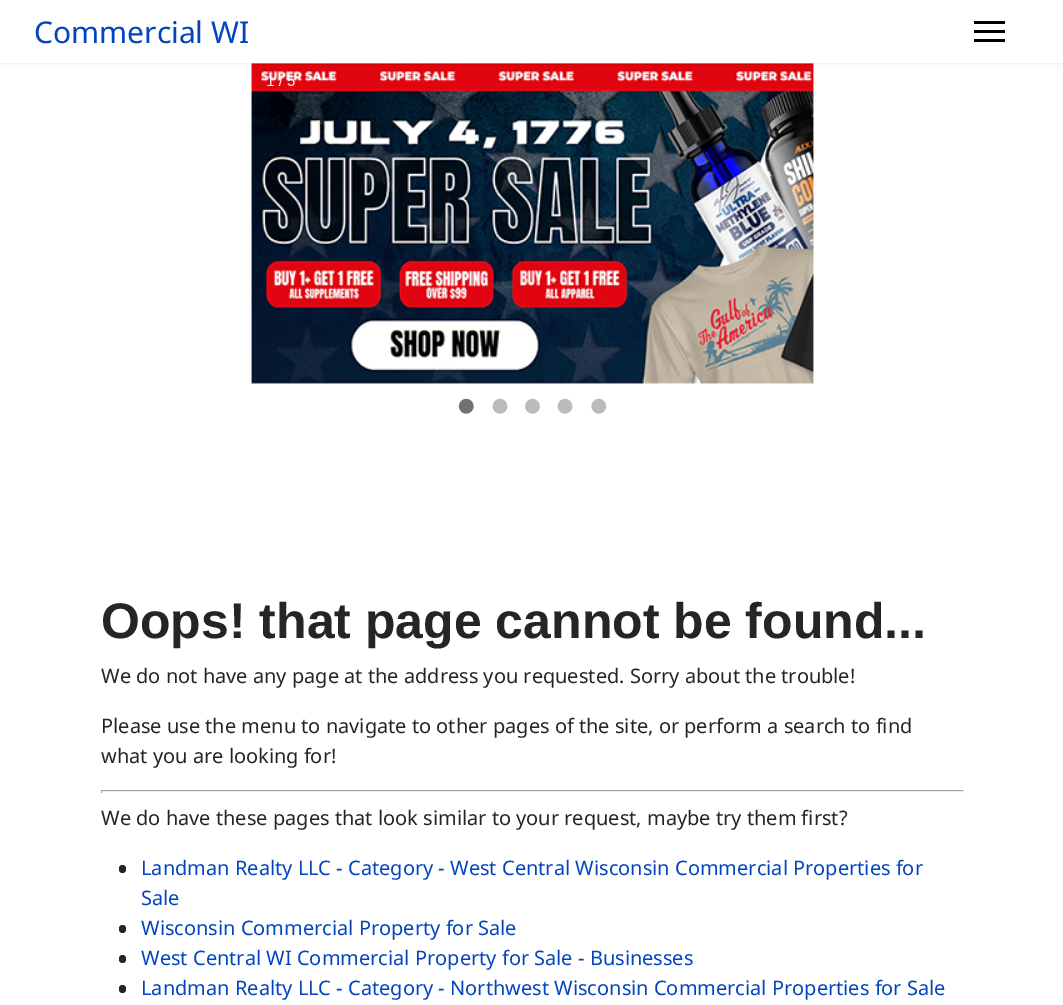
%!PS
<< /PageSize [1063 1005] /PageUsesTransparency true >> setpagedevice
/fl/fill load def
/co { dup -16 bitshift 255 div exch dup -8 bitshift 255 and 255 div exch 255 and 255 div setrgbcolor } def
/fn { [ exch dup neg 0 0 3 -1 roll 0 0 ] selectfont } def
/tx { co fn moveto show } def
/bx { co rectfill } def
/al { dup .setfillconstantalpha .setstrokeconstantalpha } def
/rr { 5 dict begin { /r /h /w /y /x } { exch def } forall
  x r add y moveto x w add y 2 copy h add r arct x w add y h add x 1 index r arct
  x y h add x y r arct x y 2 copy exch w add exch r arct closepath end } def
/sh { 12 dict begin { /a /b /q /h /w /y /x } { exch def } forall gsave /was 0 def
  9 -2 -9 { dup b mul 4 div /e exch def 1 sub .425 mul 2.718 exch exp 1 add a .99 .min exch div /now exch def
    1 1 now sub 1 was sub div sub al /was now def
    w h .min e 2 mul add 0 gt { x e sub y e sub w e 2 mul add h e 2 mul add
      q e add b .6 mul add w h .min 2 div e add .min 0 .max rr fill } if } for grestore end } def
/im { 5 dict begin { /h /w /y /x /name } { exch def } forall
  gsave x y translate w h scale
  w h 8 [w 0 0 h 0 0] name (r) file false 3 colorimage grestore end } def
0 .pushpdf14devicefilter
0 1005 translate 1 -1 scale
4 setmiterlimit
0 0 1063 1005 16#FFFFFF bx
(media/1.raw) 251 63 563 351 im
16#000000 co
0 0 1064 63 0 2.5 .1 sh
0 0 1063 63 16#FFFFFF bx
974 21 31 3 16#000000 bx
974 30 31 3 16#000000 bx
974 39 31 3 16#000000 bx
101 790 863 1 16#9F9F9F bx
963 790 1 3 16#EEEEEE bx
101 791 863 1 16#EEEEEE bx
101 790 1 3 16#9F9F9F bx
16#252525 co
119 865 7 8 3.5 rr fl
119 925 7 8 3.5 rr fl
119 955 7 8 3.5 rr fl
119 985 7 8 3.5 rr fl
(Commercial WI) 34 43 /NotoSans-Regular 30 16#0345BF tx
(Oops! that page cannot be found...) 101 638 /LiberationSans-Bold 50 16#252525 tx
(We do not have any page at the address you requested. Sorry about the trouble!) 101 683 /NotoSans-Regular 20 16#252525 tx
(Please use the menu to navigate to other pages of the site, or perform a search to find) 101 733 /NotoSans-Regular 20 16#252525 tx
(what you are looking for!) 101 763 /NotoSans-Regular 20 16#252525 tx
(We do have these pages that look similar to your request, maybe try them first?) 101 825 /NotoSans-Regular 20 16#252525 tx
(Landman Realty LLC - Category - West Central Wisconsin Commercial Properties for) 141 875 /NotoSans-Regular 20 16#0345BF tx
(Sale) 141 905 /NotoSans-Regular 20 16#0345BF tx
(Wisconsin Commercial Property for Sale) 141 935 /NotoSans-Regular 20 16#0345BF tx
(West Central WI Commercial Property for Sale - Businesses) 141 965 /NotoSans-Regular 20 16#0345BF tx
(Landman Realty LLC - Category - Northwest Wisconsin Commercial Properties for Sale) 141 995 /NotoSans-Regular 20 16#0345BF tx
.poppdf14devicefilter showpage
